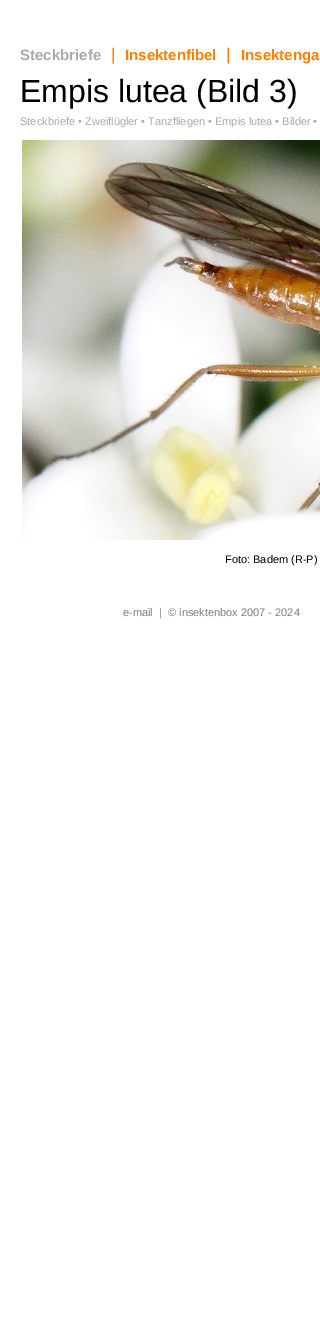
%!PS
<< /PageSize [320 1317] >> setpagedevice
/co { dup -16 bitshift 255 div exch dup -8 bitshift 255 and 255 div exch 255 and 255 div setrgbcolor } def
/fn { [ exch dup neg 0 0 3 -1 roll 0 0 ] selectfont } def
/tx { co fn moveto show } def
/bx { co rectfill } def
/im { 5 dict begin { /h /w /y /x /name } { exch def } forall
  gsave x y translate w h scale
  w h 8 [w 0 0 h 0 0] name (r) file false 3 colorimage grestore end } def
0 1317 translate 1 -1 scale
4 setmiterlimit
0 0 320 1317 16#FFFFFF bx
(media/1.raw) 22 140 298 400 im
(Steckbriefe) 20 60 /LiberationSans-Bold 15 16#AAAAAA tx
(|) 111 60 /LiberationSans-Regular 17 16#FF7F00 tx
(Insektenfibel) 125 60 /LiberationSans-Bold 15 16#FF7F00 tx
(|) 226 60 /LiberationSans-Regular 17 16#FF7F00 tx
(Insektenga) 241 60 /LiberationSans-Bold 15 16#FF7F00 tx
(Empis lutea \(Bild 3\)) 20 102 /LiberationSans-Regular 32 16#000000 tx
(Steckbriefe • Zweiflügler • Tanzfliegen • Empis lutea • Bilder •) 20 125 /LiberationSans-Regular 11 16#AAAAAA tx
(Foto: Badem \(R-P\)) 225 563 /LiberationSans-Regular 11 16#000000 tx
(e-mail) 123 616 /LiberationSans-Regular 11 16#7F7F7F tx
(|) 159 616 /LiberationSans-Regular 11 16#7F7F7F tx
(© insektenbox 2007 - 2024) 168 616 /LiberationSans-Regular 11 16#7F7F7F tx
showpage
